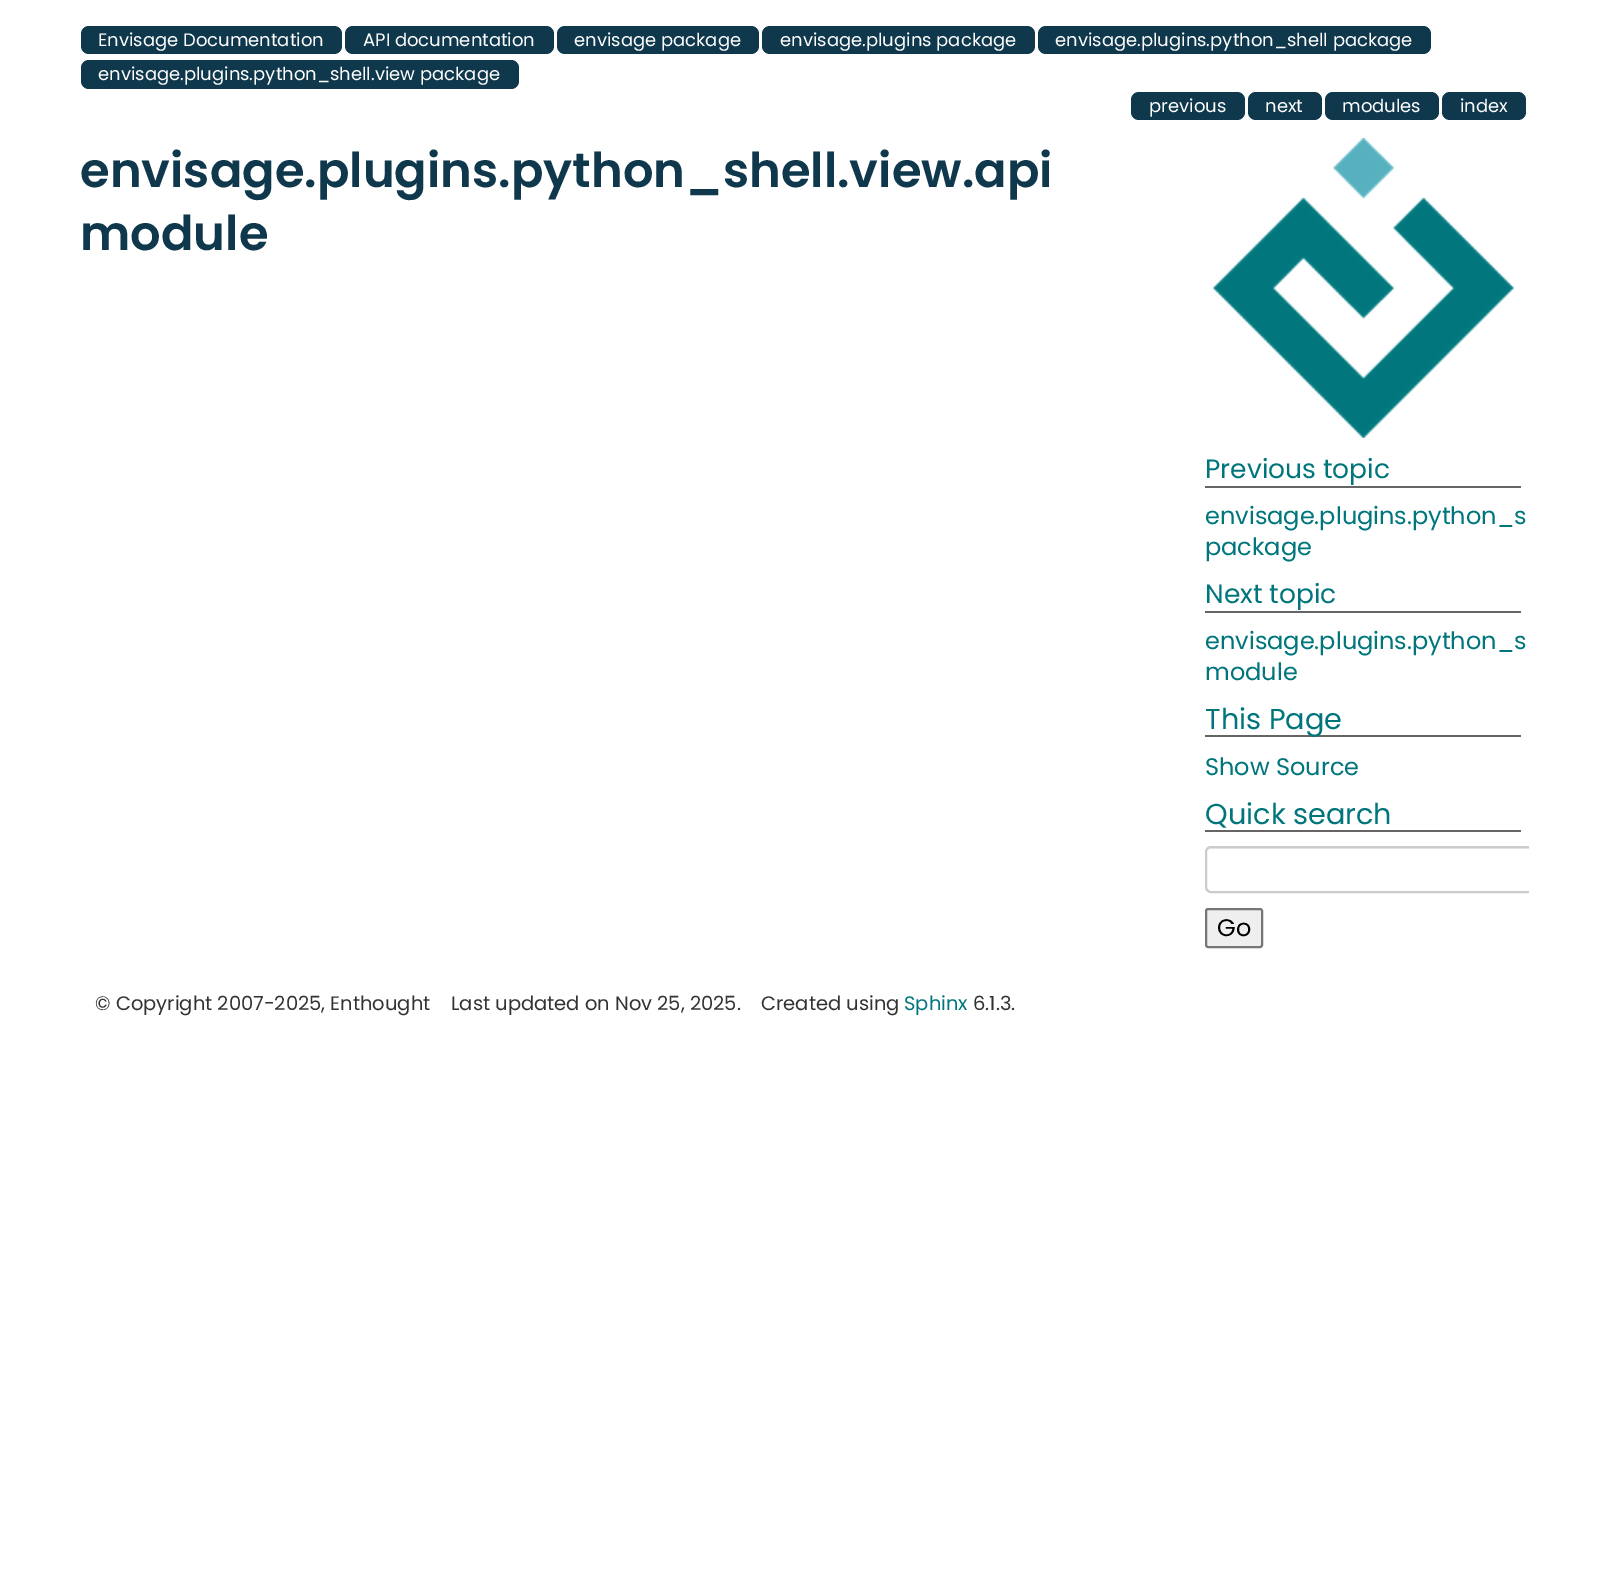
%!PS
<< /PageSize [1609 1578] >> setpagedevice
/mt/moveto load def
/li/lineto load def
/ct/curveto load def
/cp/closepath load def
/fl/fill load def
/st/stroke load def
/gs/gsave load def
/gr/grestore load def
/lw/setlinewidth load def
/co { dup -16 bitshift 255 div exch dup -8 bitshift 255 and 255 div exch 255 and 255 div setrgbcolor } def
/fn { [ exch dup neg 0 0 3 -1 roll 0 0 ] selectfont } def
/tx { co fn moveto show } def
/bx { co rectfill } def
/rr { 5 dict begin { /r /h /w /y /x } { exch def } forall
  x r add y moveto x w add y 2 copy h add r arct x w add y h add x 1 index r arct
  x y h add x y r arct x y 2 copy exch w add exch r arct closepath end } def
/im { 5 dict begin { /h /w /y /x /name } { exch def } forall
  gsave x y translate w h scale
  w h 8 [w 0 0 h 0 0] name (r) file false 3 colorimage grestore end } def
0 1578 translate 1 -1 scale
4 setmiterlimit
0 0 1609 1578 16#FFFFFF bx
16#0F384D co
81 26 261 28 8 rr fl
345 26 209 28 8 rr fl
557 26 202 28 8 rr fl
762 26 273 28 8 rr fl
1038 26 393 28 8 rr fl
81 60 438 29 8 rr fl
1131 92 114 28 8 rr fl
1248 92 74 28 8 rr fl
1325 92 114 28 8 rr fl
1442 92 84 28 8 rr fl
(media/1.raw) 1213 138 301 300 im
1205 486 316 2 16#656565 bx
1205 611 316 2 16#656565 bx
1205 735 316 2 16#656565 bx
1205 830 316 2 16#656565 bx
gs
1190 123 339 857 rectclip
16#ECECEC co
1210 849 mt 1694 849 li 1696 849 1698 851 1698 854 ct 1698 853 li 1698 850 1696 848 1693 848 ct 1211 848 li 1208 848 1206 850 1206 853 ct 1206 854 li 1206 851 1208 849 1210 849 ct cp fl
16#CCCCCC co
2 lw
1206 847 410 45 5 rr st
gr
16#EFEFEF co
1206 909 56 38 2 rr gs fl gr
16#767676 co
2 lw
st
(Envisage Documentation) 98 46 /Poppins-Regular 18 16#FFFFFF tx
(API documentation) 363 46 /Poppins-Regular 18 16#FFFFFF tx
(envisage package) 574 46 /Poppins-Regular 18 16#FFFFFF tx
(envisage.plugins package) 780 46 /Poppins-Regular 18 16#FFFFFF tx
(envisage.plugins.python_shell package) 1055 46 /Poppins-Regular 18 16#FFFFFF tx
(envisage.plugins.python_shell.view package) 98 80 /Poppins-Regular 18 16#FFFFFF tx
(previous) 1149 112 /Poppins-Regular 18 16#FFFFFF tx
(next) 1265 112 /Poppins-Regular 18 16#FFFFFF tx
(modules) 1342 112 /Poppins-Regular 18 16#FFFFFF tx
(index) 1460 112 /Poppins-Regular 18 16#FFFFFF tx
(envisage.plugins.python_shell.view.api) 80 187 /Poppins-SemiBold 48 16#0F384D tx
(module) 80 250 /Poppins-SemiBold 48 16#0F384D tx
(Previous topic) 1205 478 /Poppins-Regular 26.5 16#00767C tx
(envisage.plugins.python_s) 1205 524 /Poppins-Regular 24 16#00767C tx
(package) 1205 555 /Poppins-Regular 24 16#00767C tx
(Next topic) 1205 603 /Poppins-Regular 26.5 16#00767C tx
(envisage.plugins.python_s) 1205 649 /Poppins-Regular 24 16#00767C tx
(module) 1205 680 /Poppins-Regular 24 16#00767C tx
(This Page) 1205 729 /Poppins-Regular 28.75 16#00767C tx
(Show Source) 1205 775 /Poppins-Regular 24 16#00767C tx
(Quick search) 1205 824 /Poppins-Regular 28.75 16#00767C tx
(Go) 1217 936 /Poppins-Regular 24 16#000000 tx
(© Copyright 2007-2025, Enthought) 95 1010 /Poppins-Regular 19.5 16#333333 tx
(Last updated on Nov 25, 2025.) 451 1010 /Poppins-Regular 19.5 16#333333 tx
(Created using) 761 1010 /Poppins-Regular 19.5 16#333333 tx
(Sphinx) 904 1010 /Poppins-Regular 19.5 16#00767C tx
(6.1.3.) 973 1010 /Poppins-Regular 19.5 16#333333 tx
showpage
